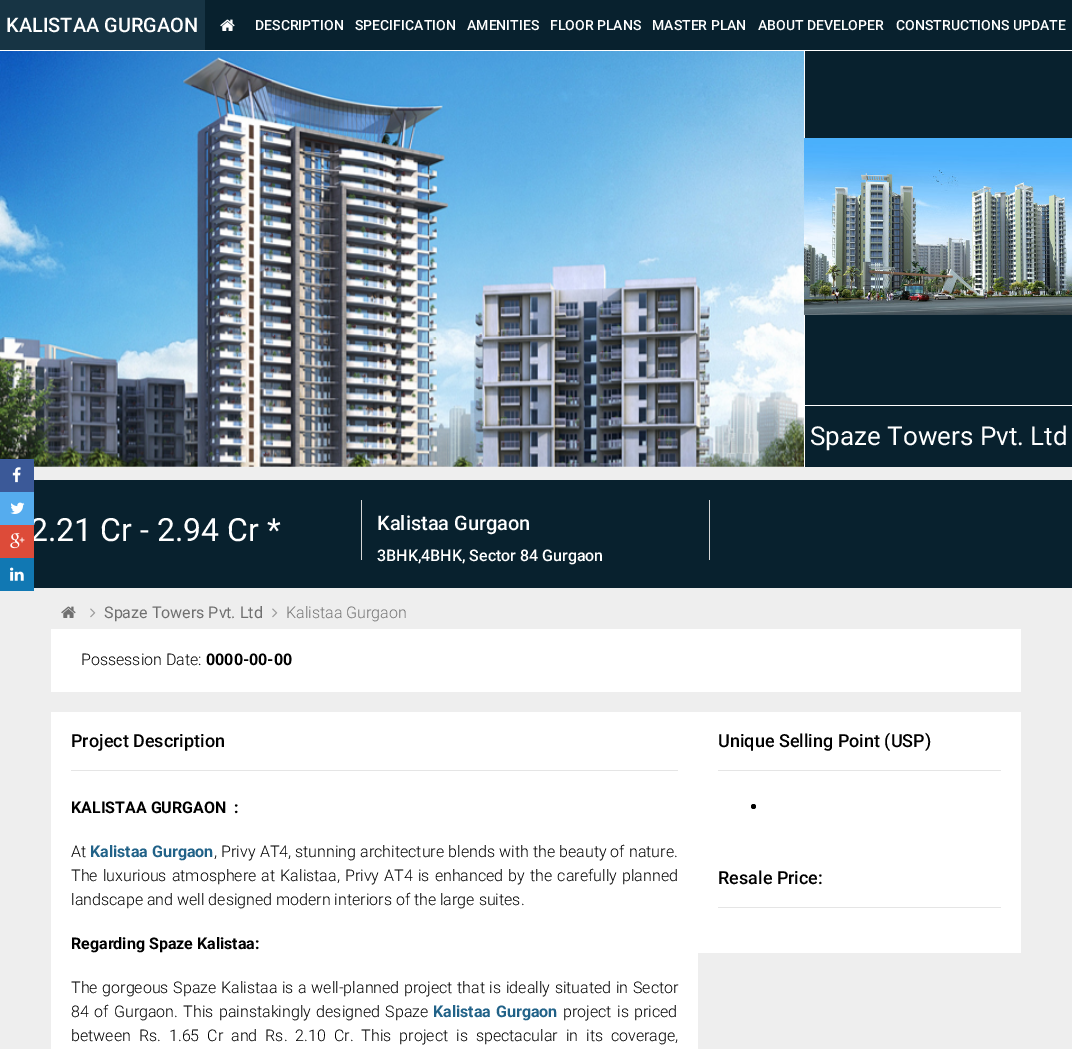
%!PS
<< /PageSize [1072 1049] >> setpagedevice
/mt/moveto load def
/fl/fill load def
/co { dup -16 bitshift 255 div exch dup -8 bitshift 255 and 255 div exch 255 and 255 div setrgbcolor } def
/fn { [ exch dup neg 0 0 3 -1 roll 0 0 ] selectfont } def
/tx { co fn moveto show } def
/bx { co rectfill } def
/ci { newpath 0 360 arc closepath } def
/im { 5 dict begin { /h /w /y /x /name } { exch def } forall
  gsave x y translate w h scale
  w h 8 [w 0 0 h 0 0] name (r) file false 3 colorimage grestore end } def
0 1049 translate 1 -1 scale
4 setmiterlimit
0 0 1072 1049 16#EEEEEE bx
0 50 1072 1 16#FFFFFF bx
0 0 205 50 16#173444 bx
205 0 867 50 16#08212E bx
(media/1.raw) 220 19 15 12 im
(media/2.raw) 0 51 804 416 im
805 51 267 354 16#08212E bx
804 51 1 354 16#FFFFFF bx
(media/3.raw) 804 138 268 177 im
805 406 267 61 16#08212E bx
804 405 268 1 16#FFFFFF bx
804 405 1 62 16#FFFFFF bx
(media/4.raw) 61 606 15 12 im
(media/5.raw) 90 608 6 10 im
(media/5.raw) 272 608 6 10 im
51 629 970 63 16#FFFFFF bx
51 712 647 337 16#FFFFFF bx
71 770 607 1 16#E5E5E5 bx
698 712 323 241 16#FFFFFF bx
718 770 283 1 16#E5E5E5 bx
16#000000 co
753.5 806.5 2.5 ci fl
718 907 283 1 16#E5E5E5 bx
0 459 34 33 16#3B5998 bx
(media/6.raw) 12 467 9 16 im
0 558 34 33 16#1178B3 bx
(media/9.raw) 10 567 14 14 im
34 480 1038 108 16#08212E bx
361 500 1 60 16#D7D7D7 bx
709 500 1 60 16#D7D7D7 bx
(KALISTAA GURGAON) 6 32 /Roboto-Medium 20 16#FFFFFF tx
(DESCRIPTION) 255 30 /Roboto-Medium 14 16#FFFFFF tx
(SPECIFICATION) 355 30 /Roboto-Medium 14 16#FFFFFF tx
(AMENITIES) 467 30 /Roboto-Medium 14 16#FFFFFF tx
(FLOOR PLANS) 550 30 /Roboto-Medium 14 16#FFFFFF tx
(MASTER PLAN) 652 30 /Roboto-Medium 14 16#FFFFFF tx
(ABOUT DEVELOPER) 758 30 /Roboto-Medium 14 16#FFFFFF tx
(CONSTRUCTIONS UPDATE) 896 30 /Roboto-Medium 14 16#FFFFFF tx
(Spaze Towers Pvt. Ltd) 810 445 /Roboto-Regular 26 16#FFFFFF tx
(Spaze Towers Pvt. Ltd) 104 618 /Roboto-Regular 16 16#707070 tx
(Kalistaa Gurgaon) 286 618 /Roboto-Light 16 16#777777 tx
(Possession Date:) 81 665 /Roboto-Light 16 16#000000 tx
(0000-00-00) 206 665 /Roboto-Bold 16 16#000000 tx
(Project Description) 71 747 /Roboto-Medium 18 16#000000 tx
(KALISTAA GURGAON  :) 71 813 /Roboto-Bold 16 16#000000 tx
(At) 71 857 /Roboto-Light 16 16#000000 tx
(Kalistaa Gurgaon) 90 857 /Roboto-Bold 16 16#216288 tx
/Roboto-Light 16 fn
16#000000 co
214 857 mt .25 0 32 (, Privy AT4, stunning architecture blends with the beauty of nature.) widthshow
71 881 mt 1.25 0 32 (The luxurious atmosphere at Kalistaa, Privy AT4 is enhanced by the carefully planned) widthshow
(landscape and well designed modern interiors of the large suites.) 71 905 /Roboto-Light 16 16#000000 tx
(Regarding Spaze Kalistaa:) 71 949 /Roboto-Bold 16 16#000000 tx
/Roboto-Light 16 fn
71 993 mt .75 0 32 (The gorgeous Spaze Kalistaa is a well-planned project that is ideally situated in Sector) widthshow
71 1017 mt 1.5 0 32 (84 of Gurgaon. This painstakingly designed Spaze) widthshow
/Roboto-Bold 16 fn
16#216288 co
433 1017 mt 1 0 32 (Kalistaa Gurgaon) widthshow
/Roboto-Light 16 fn
16#000000 co
563 1017 mt 1.5 0 32 (project is priced) widthshow
71 1041 mt 4.1 0 32 (between Rs. 1.65 Cr and Rs. 2.10 Cr. This project is spectacular in its coverage,) widthshow
(Unique Selling Point \(USP\)) 718 747 /Roboto-Medium 18 16#000000 tx
(Resale Price:) 718 884 /Roboto-Medium 18 16#000000 tx
(2.21 Cr - 2.94 Cr *) 30 541 /Roboto-Regular 32 16#FFFFFF tx
0 525 34 33 16#DD4B39 bx
(media/8.raw) 10 533 15 16 im
0 492 34 33 16#55ACEE bx
(media/7.raw) 10 502 15 12 im
(Kalistaa Gurgaon) 377 530 /Roboto-Medium 20 16#FFFFFF tx
(3BHK,4BHK, Sector 84 Gurgaon) 377 561 /Roboto-Medium 16 16#FFFFFF tx
showpage
